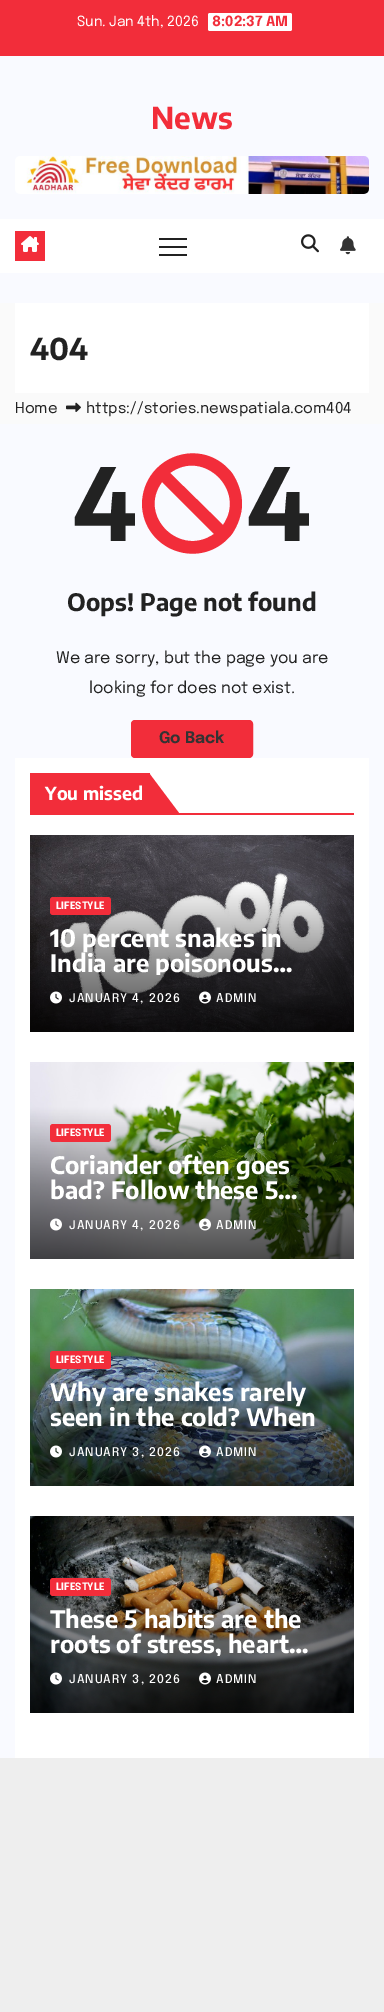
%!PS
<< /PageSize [384 2012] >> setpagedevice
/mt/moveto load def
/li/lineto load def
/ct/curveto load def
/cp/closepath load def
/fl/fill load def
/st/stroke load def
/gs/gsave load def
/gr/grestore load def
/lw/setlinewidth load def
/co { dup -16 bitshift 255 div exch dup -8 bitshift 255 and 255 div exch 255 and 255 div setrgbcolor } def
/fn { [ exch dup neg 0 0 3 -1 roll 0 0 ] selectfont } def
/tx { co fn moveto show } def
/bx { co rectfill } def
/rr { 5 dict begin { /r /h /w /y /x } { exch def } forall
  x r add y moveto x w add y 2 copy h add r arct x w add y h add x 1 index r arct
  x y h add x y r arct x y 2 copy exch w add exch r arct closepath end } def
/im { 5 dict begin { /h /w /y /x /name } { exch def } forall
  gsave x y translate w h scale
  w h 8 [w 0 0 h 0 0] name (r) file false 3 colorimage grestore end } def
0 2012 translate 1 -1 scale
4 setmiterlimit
0 0 384 2012 16#EEEEEE bx
0 273 384 1485 16#F9FAFF bx
0 0 384 56 16#F22D3A bx
16#FFFFFF co
208 13 84 18 2 rr fl
0 56 384 163 16#F9FAFF bx
(media/1.raw) 15 156 354 38 im
0 219 384 54 16#FFFFFF bx
15 231 30 30 16#F22D3A bx
(media/2.raw) 21 236 18 16 im
159 238 28 2 16#212121 bx
159 246 28 2 16#212121 bx
159 254 28 2 16#212121 bx
(media/3.raw) 301 234 18 19 im
(media/4.raw) 340 236 16 19 im
0 303 384 121 16#FAFAFA bx
15 303 354 90 16#FFFFFF bx
(media/5.raw) 66 402 15 10 im
16#F22D3A co
214 534 mt 162 482 li 137 516 180 558 214 534 ct cp 223 525 mt 247 491 204 448 170 473 ct cp 142 504 mt 143 456 202 435 232 473 ct 238 482 242 493 242 504 ct 242 514 238 525 232 534 ct 202 572 143 551 142 504 ct cp fl
132 721 120 36 3 rr gs fl gr
2 lw
st
15 758 354 1000 16#FFFFFF bx
30 813 324 2 16#F22D3A bx
30 773 120 40 16#F22D3A bx
149 813 mt 149 773 li 179 813 li cp fl
(media/6.raw) 30 835 324 197 im
50 897 61 18 3 rr fl
(media/7.raw) 50 991 12 13 im
(media/8.raw) 199 991 12 13 im
(media/9.raw) 30 1062 324 197 im
50 1124 61 18 3 rr fl
(media/10.raw) 50 1218 12 13 im
(media/11.raw) 199 1218 12 13 im
(media/12.raw) 30 1289 324 197 im
50 1351 61 18 3 rr fl
(media/13.raw) 50 1445 12 13 im
(media/14.raw) 199 1445 12 13 im
(media/15.raw) 30 1516 324 197 im
50 1578 61 18 3 rr fl
(media/16.raw) 50 1672 12 13 im
(media/17.raw) 199 1672 12 13 im
(Sun. Jan 4th, 2026) 77 26 /Epilogue-Regular 14 16#FFFFFF tx
(8:02:37 AM) 212 26 /Epilogue-Bold 14 16#F22D3A tx
(News) 151 129 /EncodeSansCondensed-Bold 30 16#F22D3A tx
(404) 30 360 /EncodeSansCondensed-Bold 30 16#222222 tx
(Home) 15 413 /Epilogue-Regular 15 16#222222 tx
(https://stories.newspatiala.com404) 86 413 /Epilogue-Regular 15 16#222222 tx
(4) 73 541 /EncodeSansCondensed-Bold 100 16#222222 tx
(4) 247 541 /EncodeSansCondensed-Bold 100 16#222222 tx
(Oops! Page not found) 67 611 /EncodeSansCondensed-Bold 24 16#222222 tx
(We are sorry, but the page you are) 56 663 /Epilogue-Regular 16 16#222222 tx
(looking for does not exist.) 89 693 /Epilogue-Regular 16 16#222222 tx
(Go Back) 159 743 /Epilogue-Bold 16 16#333333 tx
(You missed) 45 800 /EncodeSansCondensed-Bold 18 16#FFFFFF tx
(LIFESTYLE) 56 909 /Epilogue-Bold 10 16#FFFFFF tx
(10 percent snakes in) 50 947 /EncodeSansCondensed-Bold 24 16#FFFFFF tx
gs
50 925 284 50 rectclip
(India are poisonous…) 50 972 /EncodeSansCondensed-Bold 24 16#FFFFFF tx
gr
/Epilogue-Medium 12 fn
69 1002 mt 1 0 (JANUARY 4, 2026) ashow
216 1002 mt 1 0 (ADMIN) ashow
(LIFESTYLE) 56 1136 /Epilogue-Bold 10 16#FFFFFF tx
(Coriander often goes) 50 1174 /EncodeSansCondensed-Bold 24 16#FFFFFF tx
(bad? Follow these 5…) 50 1199 /EncodeSansCondensed-Bold 24 16#FFFFFF tx
/Epilogue-Medium 12 fn
69 1229 mt 1 0 (JANUARY 4, 2026) ashow
216 1229 mt 1 0 (ADMIN) ashow
(LIFESTYLE) 56 1363 /Epilogue-Bold 10 16#FFFFFF tx
(Why are snakes rarely) 50 1401 /EncodeSansCondensed-Bold 24 16#FFFFFF tx
(seen in the cold? When) 50 1426 /EncodeSansCondensed-Bold 24 16#FFFFFF tx
/Epilogue-Medium 12 fn
69 1456 mt 1 0 (JANUARY 3, 2026) ashow
216 1456 mt 1 0 (ADMIN) ashow
(LIFESTYLE) 56 1590 /Epilogue-Bold 10 16#FFFFFF tx
(These 5 habits are the) 50 1628 /EncodeSansCondensed-Bold 24 16#FFFFFF tx
gs
50 1606 284 50 rectclip
(roots of stress, heart…) 50 1653 /EncodeSansCondensed-Bold 24 16#FFFFFF tx
gr
/Epilogue-Medium 12 fn
69 1683 mt 1 0 (JANUARY 3, 2026) ashow
216 1683 mt 1 0 (ADMIN) ashow
showpage
